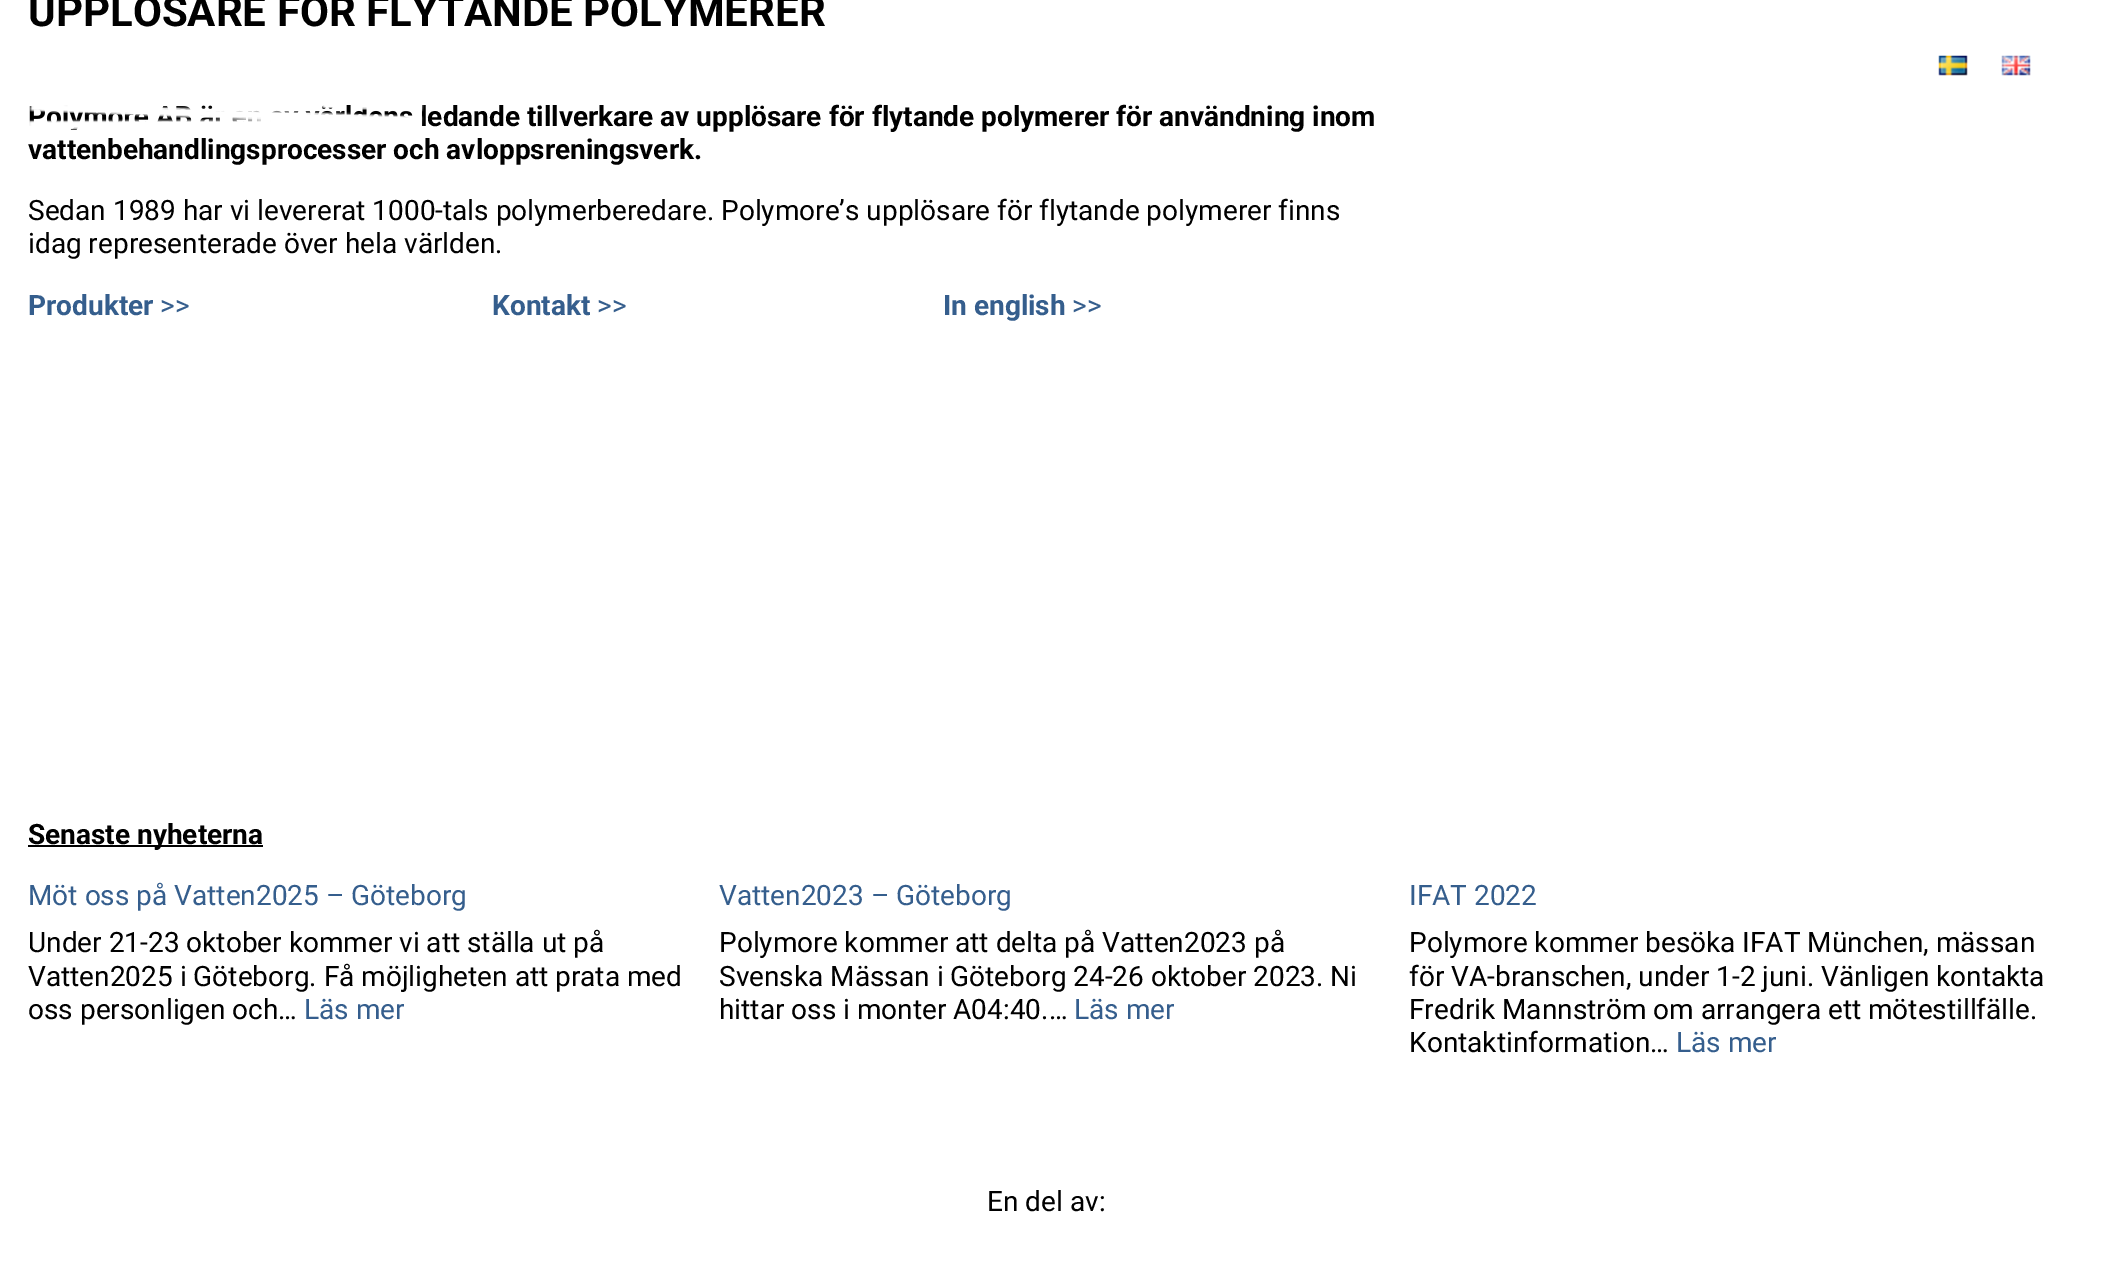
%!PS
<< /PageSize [2118 1287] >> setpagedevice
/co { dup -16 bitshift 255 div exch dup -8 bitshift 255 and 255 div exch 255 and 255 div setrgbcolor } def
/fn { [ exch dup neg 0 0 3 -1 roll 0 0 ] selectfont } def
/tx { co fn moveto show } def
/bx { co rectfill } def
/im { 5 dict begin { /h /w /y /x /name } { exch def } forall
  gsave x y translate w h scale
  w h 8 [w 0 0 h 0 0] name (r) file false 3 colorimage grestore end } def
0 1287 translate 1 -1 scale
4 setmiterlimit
0 0 2118 1287 16#FFFFFF bx
28 845 235 2 16#000000 bx
(media/1.raw) 1938 55 30 21 im
(media/2.raw) 2001 55 30 21 im
(UPPLÖSARE FÖR FLYTANDE POLYMERER) 28 26 /Roboto-Bold 42 16#000000 tx
(ledande tillverkare av upplösare för flytande polymerer för användning inom) 420 126 /Roboto-Bold 28 16#000000 tx
(vattenbehandlingsprocesser och avloppsreningsverk.) 28 159 /Roboto-Bold 28 16#000000 tx
(Sedan 1989 har vi levererat 1000-tals polymerberedare. Polymore’s upplösare för flytande polymerer finns) 28 220 /Roboto-Regular 28 16#000000 tx
(idag representerade över hela världen.) 28 253 /Roboto-Regular 28 16#000000 tx
(Produkter) 28 315 /Roboto-Bold 28 16#355E8D tx
(>>) 160 315 /Roboto-Regular 28 16#355E8D tx
(Kontakt) 492 315 /Roboto-Bold 28 16#355E8D tx
(>>) 597 315 /Roboto-Regular 28 16#355E8D tx
(In english) 943 315 /Roboto-Bold 28 16#355E8D tx
(>>) 1072 315 /Roboto-Regular 28 16#355E8D tx
(Senaste nyheterna) 28 844 /Roboto-Bold 28 16#000000 tx
(Möt oss på Vatten2025 – Göteborg) 28 905 /Roboto-Regular 28 16#355E8D tx
(Under 21-23 oktober kommer vi att ställa ut på) 28 952 /Roboto-Regular 28 16#000000 tx
(Vatten2025 i Göteborg. Få möjligheten att prata med) 28 986 /Roboto-Regular 28 16#000000 tx
(oss personligen och…) 28 1019 /Roboto-Regular 28 16#000000 tx
(Läs mer) 304 1019 /Roboto-Regular 28 16#355E8D tx
(Vatten2023 – Göteborg) 719 905 /Roboto-Regular 28 16#355E8D tx
(Polymore kommer att delta på Vatten2023 på) 719 952 /Roboto-Regular 28 16#000000 tx
(Svenska Mässan i Göteborg 24-26 oktober 2023. Ni) 719 986 /Roboto-Regular 28 16#000000 tx
(hittar oss i monter A04:40.…) 719 1019 /Roboto-Regular 28 16#000000 tx
(Läs mer) 1074 1019 /Roboto-Regular 28 16#355E8D tx
(IFAT 2022) 1409 905 /Roboto-Regular 28 16#355E8D tx
(Polymore kommer besöka IFAT München, mässan) 1409 952 /Roboto-Regular 28 16#000000 tx
(för VA-branschen, under 1-2 juni. Vänligen kontakta) 1409 986 /Roboto-Regular 28 16#000000 tx
(Fredrik Mannström om arrangera ett mötestillfälle.) 1409 1019 /Roboto-Regular 28 16#000000 tx
(Kontaktinformation…) 1409 1052 /Roboto-Regular 28 16#000000 tx
(Läs mer) 1676 1052 /Roboto-Regular 28 16#355E8D tx
(media/3.raw) 29 105 396 25 im
(En del av:) 987 1211 /Roboto-Regular 28 16#000000 tx
showpage
